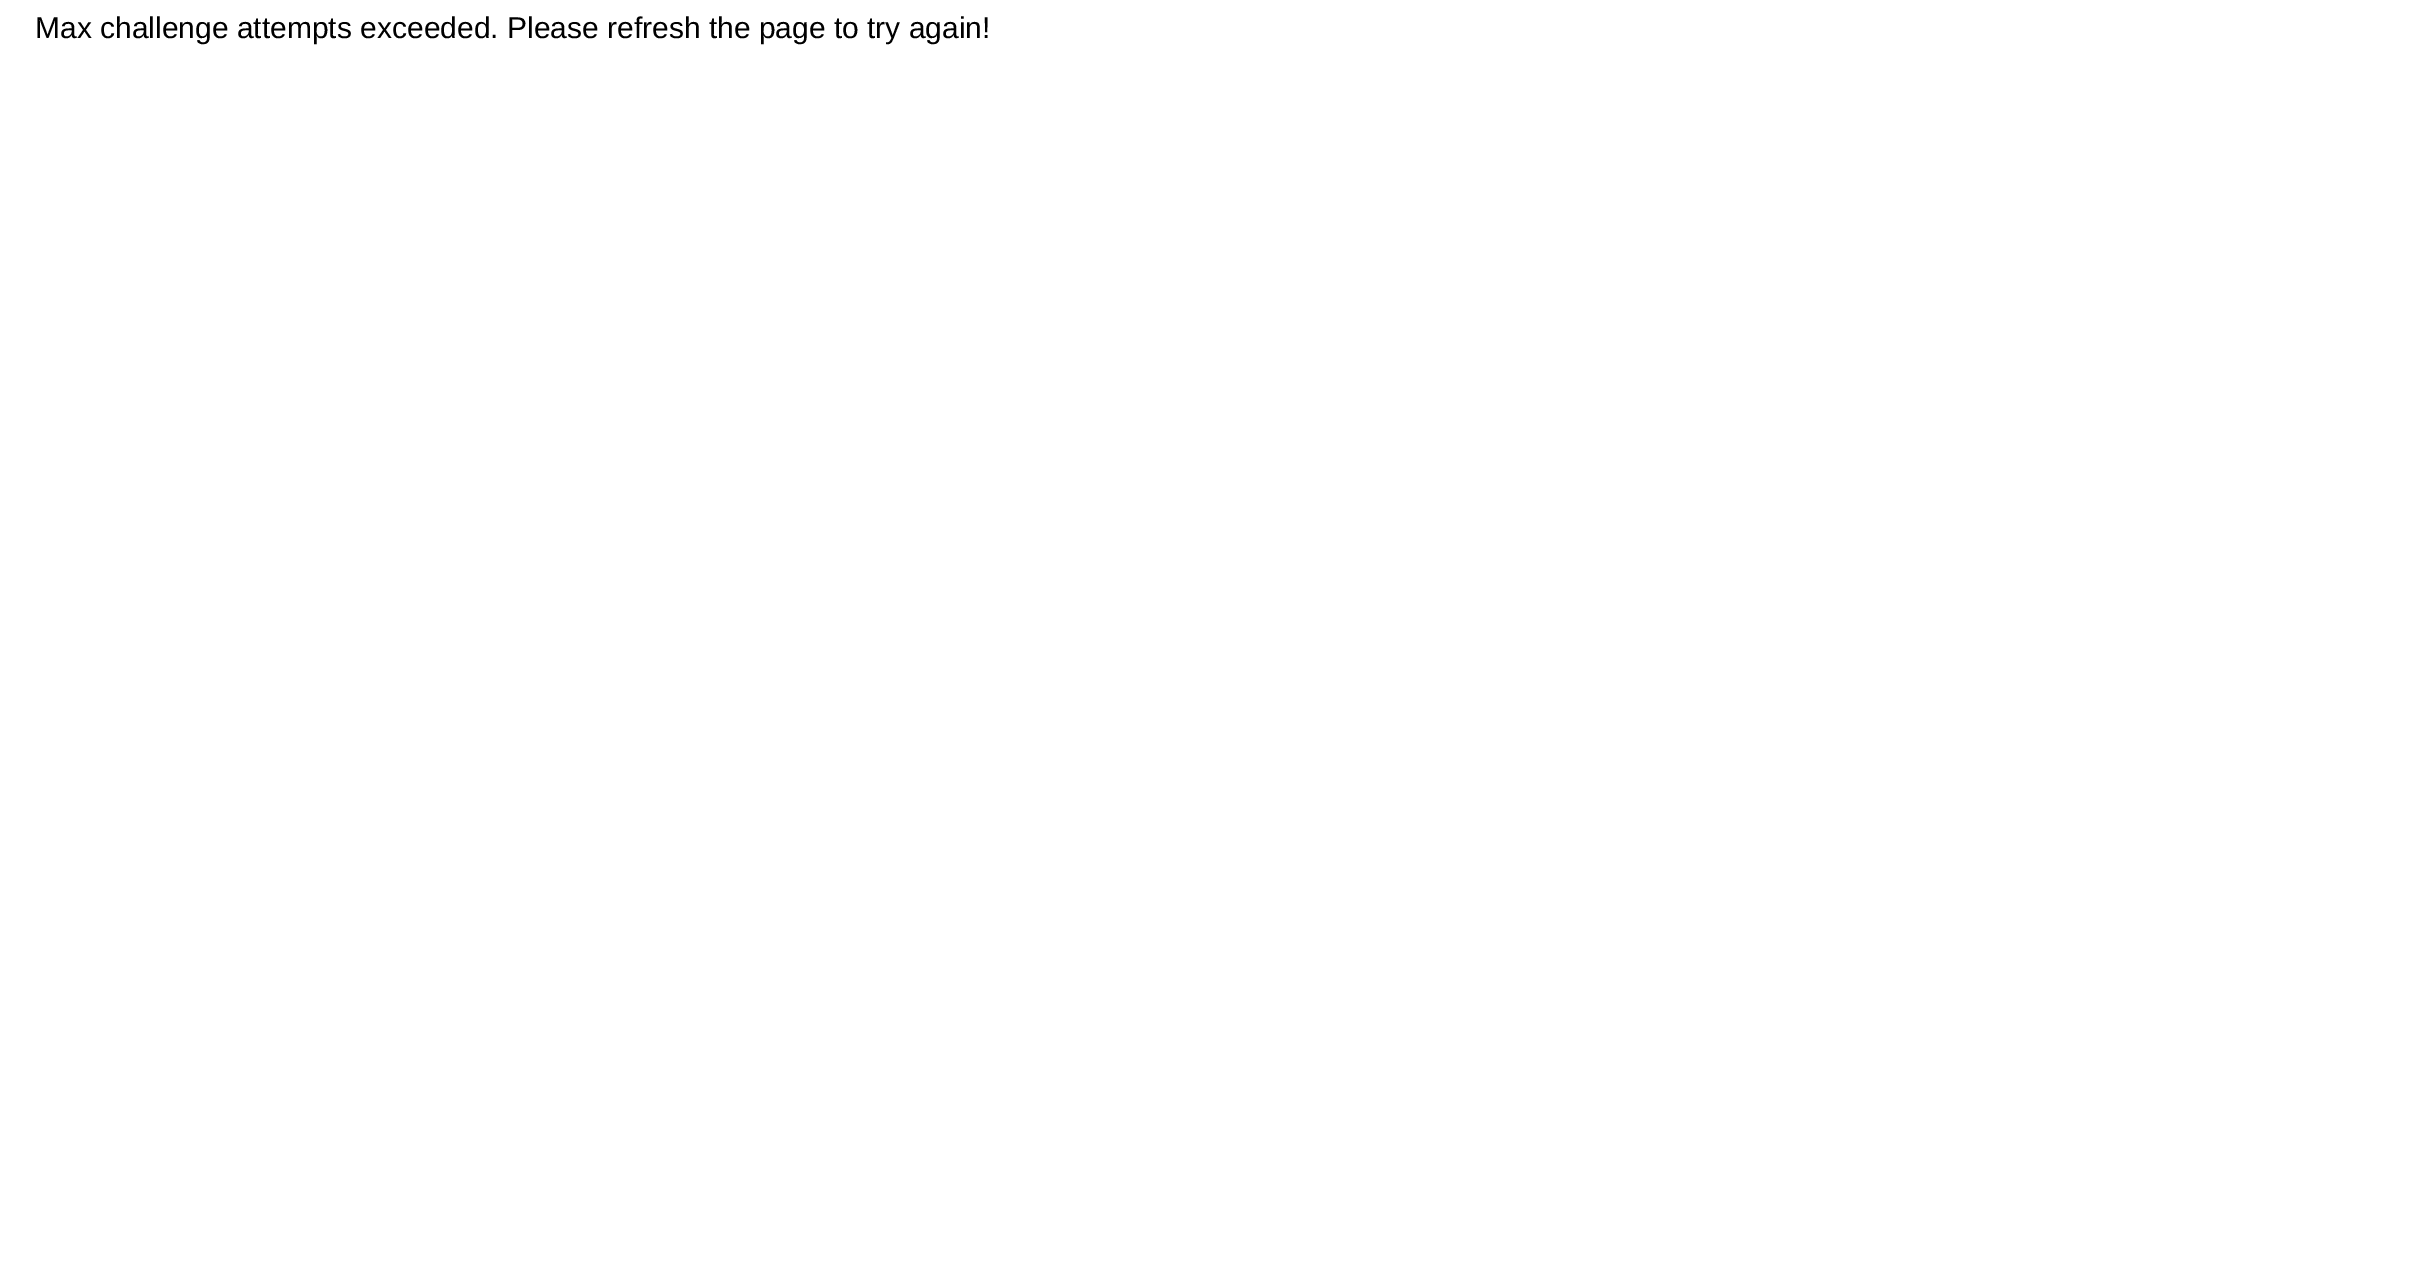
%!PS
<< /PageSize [2421 1278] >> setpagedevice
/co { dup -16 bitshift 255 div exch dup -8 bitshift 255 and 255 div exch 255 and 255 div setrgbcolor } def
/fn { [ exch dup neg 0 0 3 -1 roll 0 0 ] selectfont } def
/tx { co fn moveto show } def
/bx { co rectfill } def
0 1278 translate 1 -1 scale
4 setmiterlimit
0 0 2421 1278 16#FFFFFF bx
(Max challenge attempts exceeded. Please refresh the page to try again!) 35 38 /LiberationSans-Regular 30 16#000000 tx
showpage
